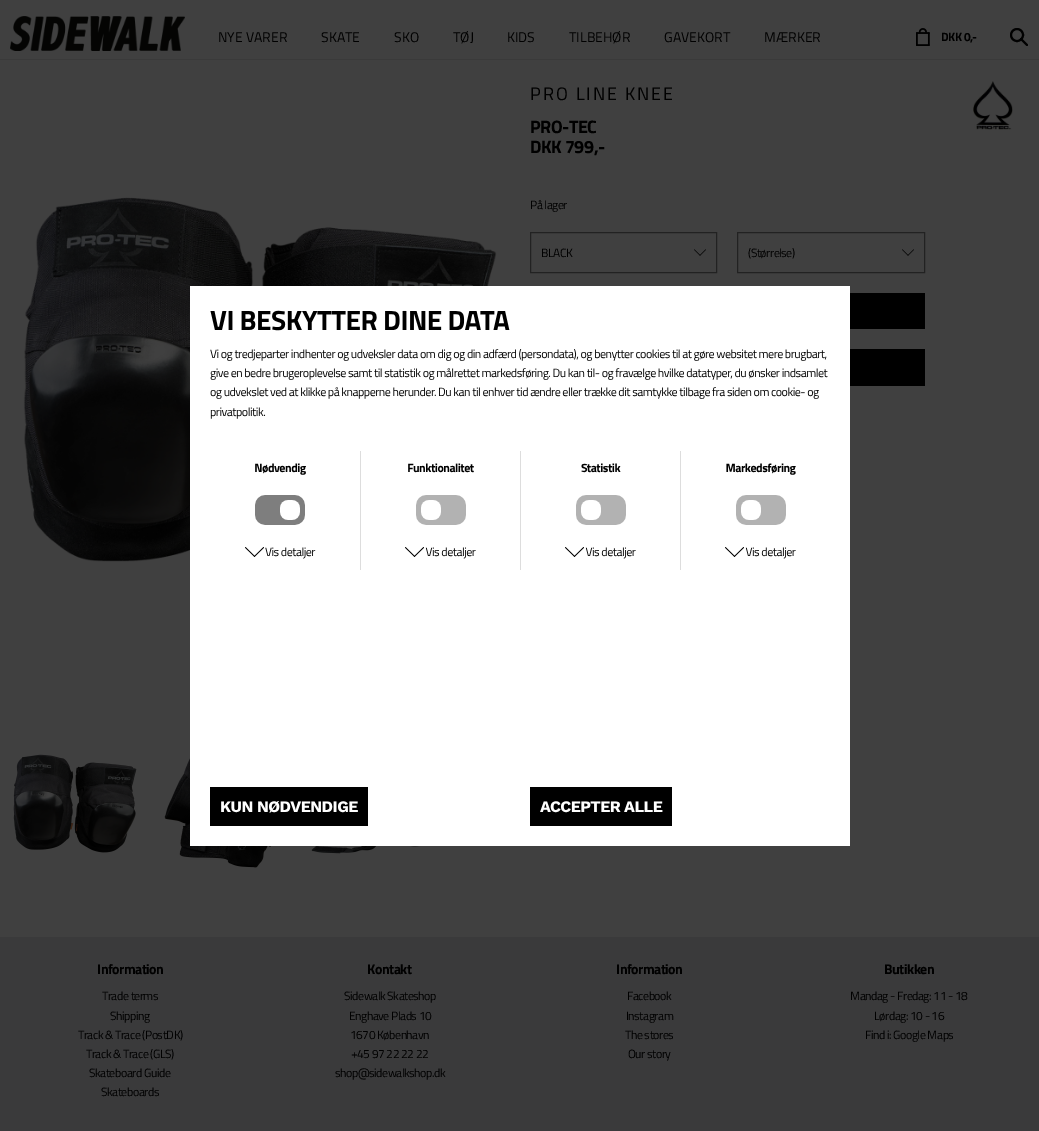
%!PS
<< /PageSize [1039 1131] >> setpagedevice
/mt/moveto load def
/li/lineto load def
/st/stroke load def
/lw/setlinewidth load def
/co { dup -16 bitshift 255 div exch dup -8 bitshift 255 and 255 div exch 255 and 255 div setrgbcolor } def
/fn { [ exch dup neg 0 0 3 -1 roll 0 0 ] selectfont } def
/tx { co fn moveto show } def
/bx { co rectfill } def
/ci { newpath 0 360 arc closepath } def
/im { 5 dict begin { /h /w /y /x /name } { exch def } forall
  gsave x y translate w h scale
  w h 8 [w 0 0 h 0 0] name (r) file false 3 colorimage grestore end } def
0 1131 translate 1 -1 scale
4 setmiterlimit
0 0 1039 1131 16#404040 bx
0 59 1039 1 16#3A3A3A bx
(media/1.raw) 10 16 175 35 im
(media/2.raw) 916 28 14 18 im
16#000000 co
2 lw
1017 35 6 ci st
1 setlinecap
1021 39 mt 1027 45 li st
(media/3.raw) 973 81 40 49 im
(media/4.raw) 694 249 12 7 im
16#222222 co
1 lw
0 setlinecap
530.5 232.5 186 40 rectstroke
(media/4.raw) 902 249 12 7 im
737.5 232.5 187 40 rectstroke
850 293 75 36 16#000000 bx
850 349 75 37 16#000000 bx
(media/5.raw) 23 197 474 365 im
(media/6.raw) 13 754 124 99 im
(media/7.raw) 164 758 107 110 im
(media/8.raw) 311 846 128 8 im
0 937 1039 194 16#3A3A3B bx
190 286 660 560 16#FFFFFF bx
(media/9.raw) 210 310 618 516 im
(NYE VARER) 218 42 /TitilliumWeb-Regular 14 16#000000 tx
(SKATE) 321 42 /TitilliumWeb-Regular 14 16#000000 tx
(SKO) 394 42 /TitilliumWeb-Regular 14 16#000000 tx
(TØJ) 453 42 /TitilliumWeb-Regular 14 16#000000 tx
(KIDS) 507 42 /TitilliumWeb-Regular 14 16#000000 tx
(TILBEHØR) 569 42 /TitilliumWeb-Regular 14 16#000000 tx
(GAVEKORT) 664 42 /TitilliumWeb-Regular 14 16#000000 tx
(MÆRKER) 764 42 /TitilliumWeb-Regular 14 16#000000 tx
/TitilliumWeb-Bold 12 fn
941 41 mt -.5 0 (DKK 0,-) ashow
/TitilliumWeb-Regular 18 fn
530 100 mt 2 0 (PRO LINE KNEE) ashow
/TitilliumWeb-Bold 18 fn
530 133 mt -.5 0 (PRO-TEC) ashow
530 153 mt -.5 0 (DKK 799,-) ashow
/TitilliumWeb-Regular 12 fn
530 209 mt -.5 0 (På lager) ashow
541 257 mt -.5 0 (BLACK) ashow
748 257 mt -.5 0 (\(Størrelse\)) ashow
/TitilliumWeb-Bold 14 fn
97 974 mt -.5 0 (Information) ashow
/TitilliumWeb-Regular 12 fn
102 1000 mt -.5 0 (Trade terms) ashow
110 1020 mt -.5 0 (Shipping) ashow
78 1039 mt -.5 0 (Track & Trace \(PostDK\)) ashow
86 1058 mt -.5 0 (Track & Trace \(GLS\)) ashow
89 1077 mt -.5 0 (Skateboard Guide) ashow
101 1096 mt -.5 0 (Skateboards) ashow
/TitilliumWeb-Bold 14 fn
367 974 mt -.5 0 (Kontakt) ashow
/TitilliumWeb-Regular 12 fn
344 1000 mt -.5 0 (Sidewalk Skateshop) ashow
349 1020 mt -.5 0 (Enghave Plads 10) ashow
350 1039 mt -.5 0 (1670 København) ashow
351 1058 mt -.5 0 (+45 97 22 22 22) ashow
335 1077 mt -.5 0 (shop@sidewalkshop.dk) ashow
/TitilliumWeb-Bold 14 fn
616 974 mt -.5 0 (Information) ashow
/TitilliumWeb-Regular 12 fn
627 1000 mt -.5 0 (Facebook) ashow
626 1020 mt -.5 0 (Instagram) ashow
625 1039 mt -.5 0 (The stores) ashow
628 1058 mt -.5 0 (Our story) ashow
/TitilliumWeb-Bold 14 fn
884 974 mt -.5 0 (Butikken) ashow
/TitilliumWeb-Regular 12 fn
850 1000 mt -.5 0 (Mandag - Fredag: 11 - 18) ashow
874 1020 mt -.5 0 (Lørdag: 10 - 16) ashow
865 1039 mt -.5 0 (Find i: Google Maps) ashow
showpage
